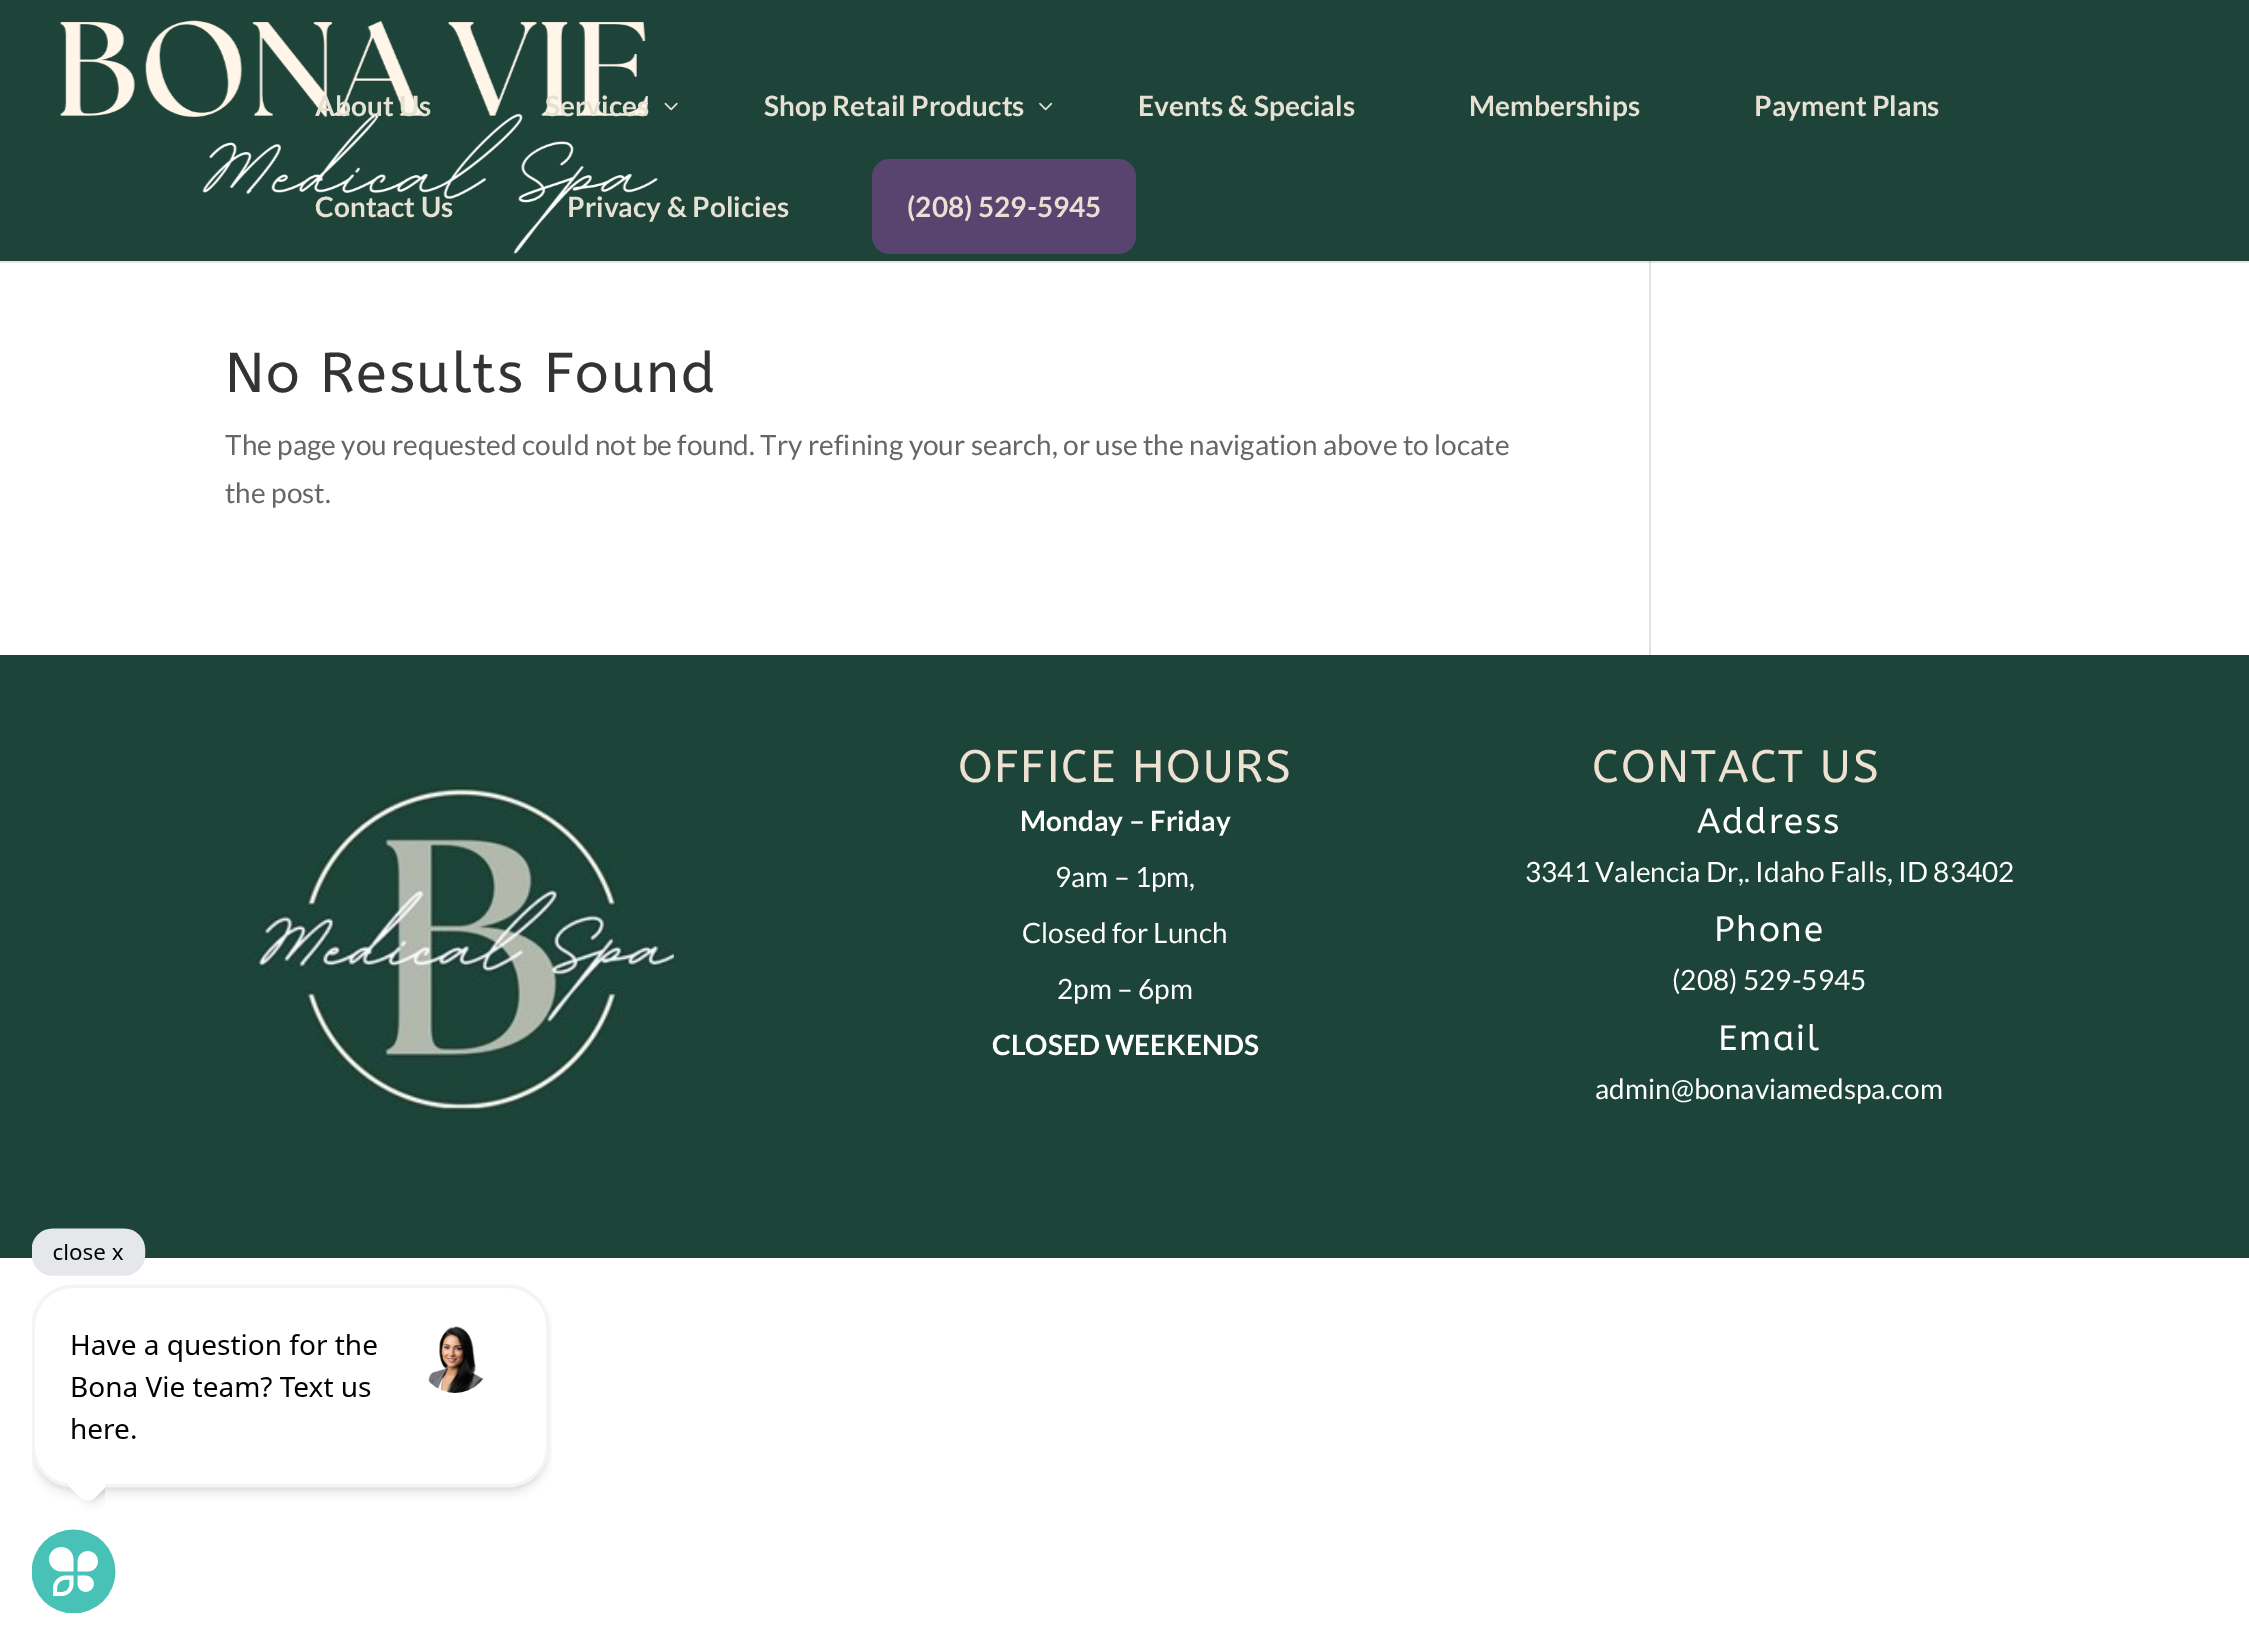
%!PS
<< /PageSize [2249 1644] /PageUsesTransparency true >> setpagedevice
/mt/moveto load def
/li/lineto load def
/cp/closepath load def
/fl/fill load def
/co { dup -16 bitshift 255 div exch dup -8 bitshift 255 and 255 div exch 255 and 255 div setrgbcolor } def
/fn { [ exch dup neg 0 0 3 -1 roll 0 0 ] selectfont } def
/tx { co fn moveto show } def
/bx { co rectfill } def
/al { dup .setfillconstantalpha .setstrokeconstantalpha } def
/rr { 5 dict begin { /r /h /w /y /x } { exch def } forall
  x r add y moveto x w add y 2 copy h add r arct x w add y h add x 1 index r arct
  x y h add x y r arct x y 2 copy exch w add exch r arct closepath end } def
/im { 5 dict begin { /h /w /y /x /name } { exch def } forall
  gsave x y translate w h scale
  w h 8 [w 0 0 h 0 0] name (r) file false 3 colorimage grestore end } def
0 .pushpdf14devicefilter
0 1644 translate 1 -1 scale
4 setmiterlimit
0 0 2249 1644 16#FFFFFF bx
1649 261 2 399 16#E2E2E2 bx
0.1 al
16#000000 co
0 261 mt 0 263 li 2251 263 li 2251 2 li 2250 2 li 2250 261 li cp fl
1 al
0 0 2249 261 16#1E4439 bx
(media/1.raw) 60 20 598 234 im
(media/2.raw) 664 102 14 9 im
(media/3.raw) 1039 102 14 9 im
16#594470 co
872 159 264 95 18 rr fl
0 655 2249 603 16#1C4439 bx
(media/4.raw) 248 787 426 325 im
(media/5.raw) 32 1228 520 385 im
(About Us) 315 116 /Lato-Bold 28 16#E6E1D2 tx
(Services) 545 116 /Lato-Bold 28 16#E6E1D2 tx
(Shop Retail Products) 764 116 /Lato-Bold 28 16#E6E1D2 tx
(Events & Specials) 1138 116 /Lato-Bold 28 16#E6E1D2 tx
(Memberships) 1469 116 /Lato-Bold 28 16#E6E1D2 tx
(Payment Plans) 1754 116 /Lato-Bold 28 16#E6E1D2 tx
(Contact Us) 315 217 /Lato-Bold 28 16#E6E1D2 tx
(Privacy & Policies) 567 217 /Lato-Bold 28 16#E6E1D2 tx
(\(208\) 529-5945) 907 217 /Lato-Bold 28 16#E6E1D2 tx
/ABeeZee-Regular 56 fn
16#333333 co
225 392 mt 1.75 0 (No Results Found) ashow
(The page you requested could not be found. Try refining your search, or use the navigation above to locate) 225 455 /Lato-Regular 28 16#666666 tx
(the post.) 225 503 /Lato-Regular 28 16#666666 tx
/ABeeZee-Regular 45.5 fn
16#EDE1D2 co
958 782 mt 1.75 0 (OFFICE HOURS) ashow
(Monday – Friday) 1020 831 /Lato-Bold 28 16#FFFFFF tx
(9am – 1pm,) 1055 887 /Lato-Regular 28 16#FFFFFF tx
(Closed for Lunch) 1022 943 /Lato-Regular 28 16#FFFFFF tx
(2pm – 6pm) 1057 999 /Lato-Regular 28 16#FFFFFF tx
(CLOSED WEEKENDS) 992 1055 /Lato-Bold 28 16#FFFFFF tx
/ABeeZee-Regular 45.5 fn
16#EDE1D2 co
1592 782 mt 1.75 0 (CONTACT US) ashow
/ABeeZee-Regular 35 fn
16#FFFFFF co
1697 833 mt 1.75 0 (Address) ashow
(3341 Valencia Dr,. Idaho Falls, ID 83402) 1525 882 /Lato-Regular 28 16#FFFFFF tx
/ABeeZee-Regular 35 fn
1714 941 mt 1.75 0 (Phone) ashow
(\(208\) 529-5945) 1672 990 /Lato-Regular 28 16#FFFFFF tx
/ABeeZee-Regular 35 fn
1718 1050 mt 1.75 0 (Email) ashow
(admin@bonaviamedspa.com) 1595 1099 /Lato-Regular 28 16#FFFFFF tx
.poppdf14devicefilter showpage
